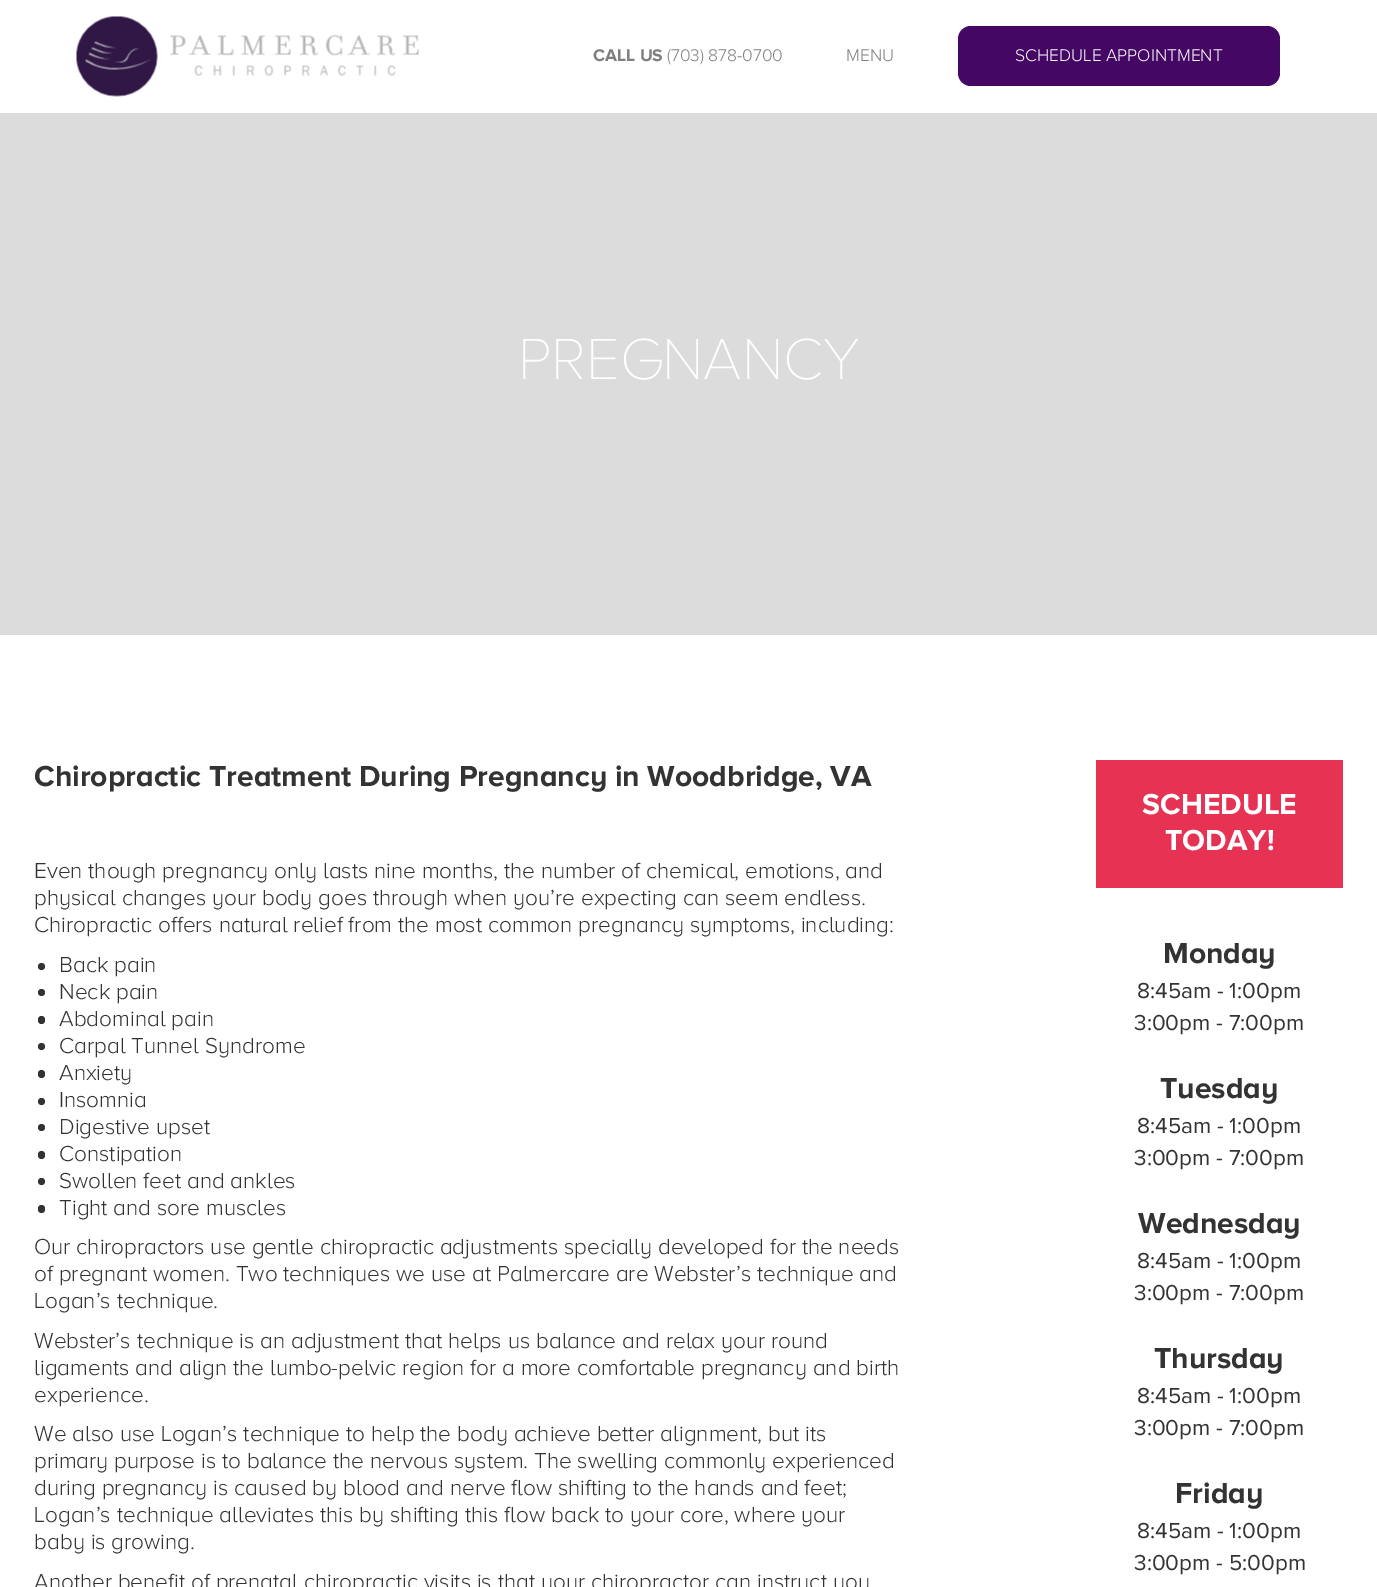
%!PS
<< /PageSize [1377 1587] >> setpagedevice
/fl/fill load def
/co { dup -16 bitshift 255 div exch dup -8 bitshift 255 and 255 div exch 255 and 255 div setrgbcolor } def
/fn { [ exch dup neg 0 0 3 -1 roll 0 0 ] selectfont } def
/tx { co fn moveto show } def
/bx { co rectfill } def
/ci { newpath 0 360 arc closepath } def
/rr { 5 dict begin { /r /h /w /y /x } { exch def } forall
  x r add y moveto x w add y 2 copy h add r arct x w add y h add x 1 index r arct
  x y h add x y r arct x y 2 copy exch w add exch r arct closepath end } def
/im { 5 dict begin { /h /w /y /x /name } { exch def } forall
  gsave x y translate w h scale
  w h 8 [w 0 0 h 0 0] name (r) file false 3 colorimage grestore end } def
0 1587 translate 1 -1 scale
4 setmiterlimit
0 0 1377 1587 16#FFFFFF bx
(media/1.raw) 76 16 343 81 im
16#450764 co
958 26 322 60 13 rr fl
0 113 1377 522 16#DCDCDC bx
16#333333 co
41.5 966.5 3.5 ci fl
41.5 992.5 3.5 ci fl
38 1016 7 8 3.5 rr fl
41.5 1046.5 3.5 ci fl
38 1070 7 8 3.5 rr fl
41.5 1101.5 3.5 ci fl
41.5 1127.5 3.5 ci fl
38 1151 7 8 3.5 rr fl
41.5 1181.5 3.5 ci fl
38 1205 7 8 3.5 rr fl
1096 760 247 128 16#E63253 bx
(CALL US) 593 61 /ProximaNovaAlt-Bold 17.5 16#7F7F7F tx
(\(703\) 878-0700) 667 61 /ProximaNovaAlt-Light 17.5 16#7F7F7F tx
(MENU) 846 61 /ProximaNovaAlt-Light 17.5 16#7F7F7F tx
(SCHEDULE APPOINTMENT) 1015 61 /ProximaNovaAlt-Light 17.5 16#FFFFFF tx
(PREGNANCY) 518 379 /ProximaNovaAlt-Thin 60 16#FFFFFF tx
(Chiropractic Treatment During Pregnancy in Woodbridge, VA) 34 786 /ProximaNovaAlt-Bold 30 16#333333 tx
(Even though pregnancy only lasts nine months, the number of chemical, emotions, and) 34 878 /ProximaNovaAlt-Light 22.5 16#333333 tx
(physical changes your body goes through when you’re expecting can seem endless.) 34 905 /ProximaNovaAlt-Light 22.5 16#333333 tx
(Chiropractic offers natural relief from the most common pregnancy symptoms, including:) 34 932 /ProximaNovaAlt-Light 22.5 16#333333 tx
(Back pain) 59 972 /ProximaNovaAlt-Light 22.5 16#333333 tx
(Neck pain) 59 999 /ProximaNovaAlt-Light 22.5 16#333333 tx
(Abdominal pain) 59 1026 /ProximaNovaAlt-Light 22.5 16#333333 tx
(Carpal Tunnel Syndrome) 59 1053 /ProximaNovaAlt-Light 22.5 16#333333 tx
(Anxiety) 59 1080 /ProximaNovaAlt-Light 22.5 16#333333 tx
(Insomnia) 59 1107 /ProximaNovaAlt-Light 22.5 16#333333 tx
(Digestive upset) 59 1134 /ProximaNovaAlt-Light 22.5 16#333333 tx
(Constipation) 59 1161 /ProximaNovaAlt-Light 22.5 16#333333 tx
(Swollen feet and ankles) 59 1188 /ProximaNovaAlt-Light 22.5 16#333333 tx
(Tight and sore muscles) 59 1215 /ProximaNovaAlt-Light 22.5 16#333333 tx
(Our chiropractors use gentle chiropractic adjustments specially developed for the needs) 34 1254 /ProximaNovaAlt-Light 22.5 16#333333 tx
(of pregnant women. Two techniques we use at Palmercare are Webster’s technique and) 34 1281 /ProximaNovaAlt-Light 22.5 16#333333 tx
(Logan’s technique.) 34 1308 /ProximaNovaAlt-Light 22.5 16#333333 tx
(Webster’s technique is an adjustment that helps us balance and relax your round) 34 1348 /ProximaNovaAlt-Light 22.5 16#333333 tx
(ligaments and align the lumbo-pelvic region for a more comfortable pregnancy and birth) 34 1375 /ProximaNovaAlt-Light 22.5 16#333333 tx
(experience.) 34 1402 /ProximaNovaAlt-Light 22.5 16#333333 tx
(We also use Logan’s technique to help the body achieve better alignment, but its) 34 1441 /ProximaNovaAlt-Light 22.5 16#333333 tx
(primary purpose is to balance the nervous system. The swelling commonly experienced) 34 1468 /ProximaNovaAlt-Light 22.5 16#333333 tx
(during pregnancy is caused by blood and nerve flow shifting to the hands and feet;) 34 1495 /ProximaNovaAlt-Light 22.5 16#333333 tx
(Logan’s technique alleviates this by shifting this flow back to your core, where your) 34 1522 /ProximaNovaAlt-Light 22.5 16#333333 tx
(baby is growing.) 34 1549 /ProximaNovaAlt-Light 22.5 16#333333 tx
(Another benefit of prenatal chiropractic visits is that your chiropractor can instruct you) 34 1589 /ProximaNovaAlt-Light 22.5 16#333333 tx
(SCHEDULE) 1142 814 /ProximaNova-Bold 30 16#FFFFFF tx
(TODAY!) 1165 850 /ProximaNova-Bold 30 16#FFFFFF tx
(Monday) 1163 963 /ProximaNovaAlt-Bold 30 16#333333 tx
(8:45am - 1:00pm) 1137 998 /ProximaNova-Regular 22.5 16#333333 tx
(3:00pm - 7:00pm) 1134 1030 /ProximaNova-Regular 22.5 16#333333 tx
(Tuesday) 1160 1098 /ProximaNovaAlt-Bold 30 16#333333 tx
(8:45am - 1:00pm) 1137 1133 /ProximaNova-Regular 22.5 16#333333 tx
(3:00pm - 7:00pm) 1134 1165 /ProximaNova-Regular 22.5 16#333333 tx
(Wednesday) 1138 1233 /ProximaNovaAlt-Bold 30 16#333333 tx
(8:45am - 1:00pm) 1137 1268 /ProximaNova-Regular 22.5 16#333333 tx
(3:00pm - 7:00pm) 1134 1300 /ProximaNova-Regular 22.5 16#333333 tx
(Thursday) 1154 1368 /ProximaNovaAlt-Bold 30 16#333333 tx
(8:45am - 1:00pm) 1137 1403 /ProximaNova-Regular 22.5 16#333333 tx
(3:00pm - 7:00pm) 1134 1435 /ProximaNova-Regular 22.5 16#333333 tx
(Friday) 1175 1503 /ProximaNovaAlt-Bold 30 16#333333 tx
(8:45am - 1:00pm) 1137 1538 /ProximaNova-Regular 22.5 16#333333 tx
(3:00pm - 5:00pm) 1134 1570 /ProximaNova-Regular 22.5 16#333333 tx
showpage
